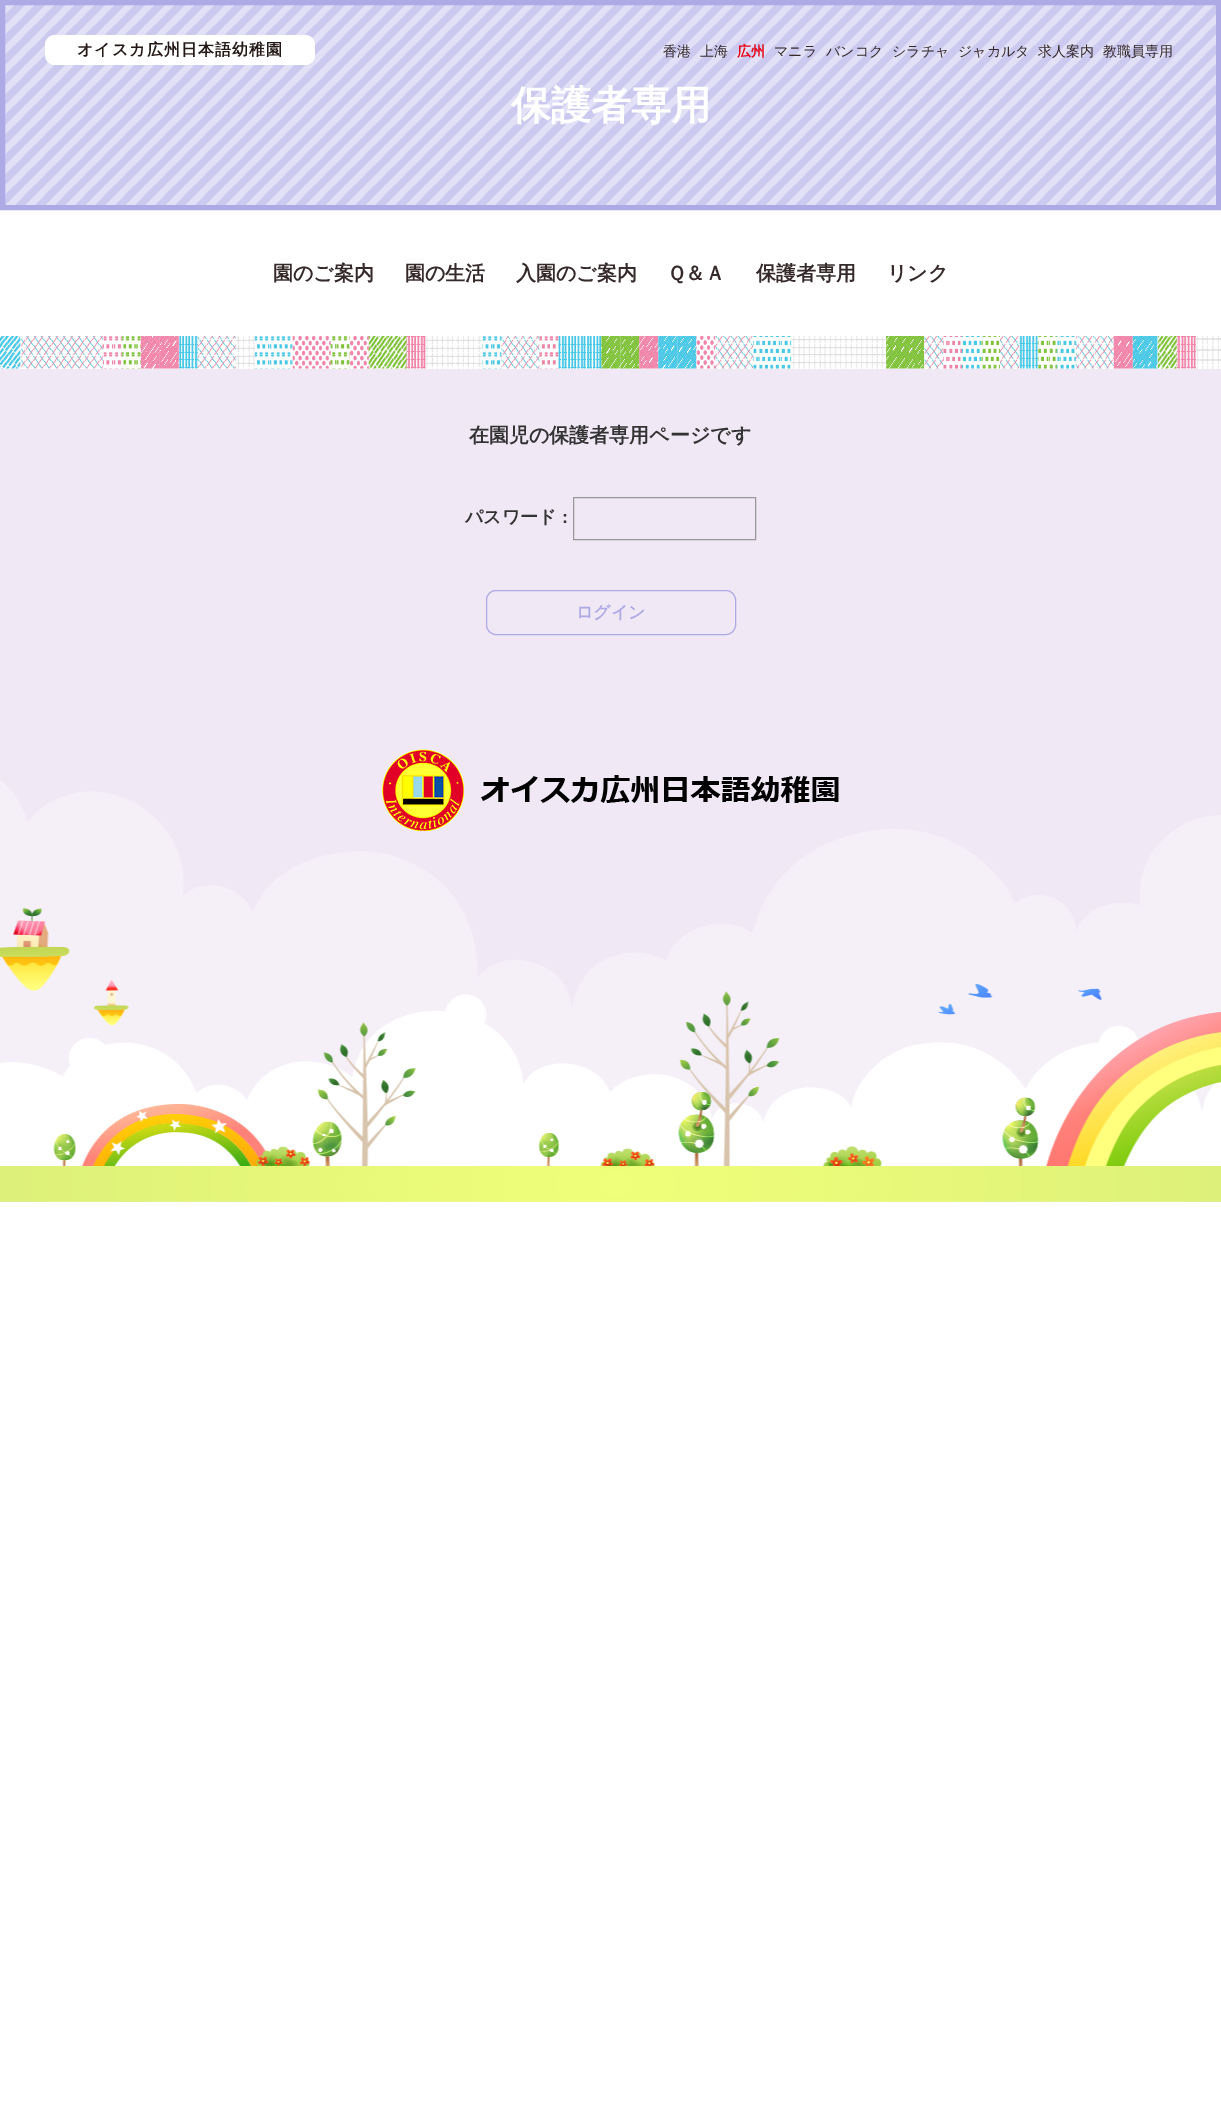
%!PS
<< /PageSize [1221 2128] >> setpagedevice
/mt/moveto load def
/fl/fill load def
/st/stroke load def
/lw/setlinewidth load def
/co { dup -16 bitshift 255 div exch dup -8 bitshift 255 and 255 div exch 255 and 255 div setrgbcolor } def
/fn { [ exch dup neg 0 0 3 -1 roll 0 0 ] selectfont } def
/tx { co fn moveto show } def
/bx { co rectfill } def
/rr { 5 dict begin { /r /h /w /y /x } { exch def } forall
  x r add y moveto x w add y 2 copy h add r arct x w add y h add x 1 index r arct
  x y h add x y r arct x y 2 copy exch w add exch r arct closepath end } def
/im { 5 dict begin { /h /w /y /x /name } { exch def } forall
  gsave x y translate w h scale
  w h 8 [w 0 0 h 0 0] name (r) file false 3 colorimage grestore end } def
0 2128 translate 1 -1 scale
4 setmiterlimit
0 0 1221 2128 16#FFFFFF bx
0 369 1221 833 16#F0E8F5 bx
(media/1.raw) 5 5 1211 200 im
16#AEAAE6 co
5 lw
2.5 2.5 1216 205 rectstroke
16#FFFFFF co
45 35 270 30 10 rr fl
(media/2.raw) 0 336 1221 33 im
16#999999 co
1 lw
573.5 497.5 182 42 rectstroke
16#AEAAE6 co
486.5 590.5 249 44 9.5 rr st
(media/4.raw) 0 780 1221 422 im
(media/3.raw) 382 749 457 82 im
/WenQuanYiZenHei-Bold 16 fn
16#231815 co
77 55 mt 1 0 (オイスカ広州日本語幼稚園) ashow
(保護者専用) 511 119 /WenQuanYiZenHei-Bold 40 16#FFFFFF tx
(香港) 663 56 /WenQuanYiZenHei-Medium 14 16#35292A tx
(上海) 700 56 /WenQuanYiZenHei-Medium 14 16#35292A tx
(広州) 737 56 /WenQuanYiZenHei-Bold 14 16#E60012 tx
(マニラ) 774 56 /WenQuanYiZenHei-Medium 14 16#35292A tx
(バンコク) 826 56 /WenQuanYiZenHei-Medium 14 16#35292A tx
(シラチャ) 892 56 /WenQuanYiZenHei-Medium 14 16#35292A tx
(ジャカルタ) 958 56 /WenQuanYiZenHei-Medium 14 16#35292A tx
(求人案内) 1038 56 /WenQuanYiZenHei-Medium 14 16#35292A tx
(教職員専用) 1103 56 /WenQuanYiZenHei-Medium 14 16#35292A tx
(園のご案内) 273 280 /WenQuanYiZenHei-Bold 20 16#35292A tx
(園の生活) 405 280 /WenQuanYiZenHei-Bold 20 16#35292A tx
(入園のご案内) 516 280 /WenQuanYiZenHei-Bold 20 16#35292A tx
(Ｑ＆Ａ) 667 280 /WenQuanYiZenHei-Bold 20 16#35292A tx
(保護者専用) 756 280 /WenQuanYiZenHei-Bold 20 16#35292A tx
(リンク) 887 280 /WenQuanYiZenHei-Bold 20 16#35292A tx
(在園児の保護者専用ページです) 469 442 /WenQuanYiZenHei-Bold 20 16#333333 tx
(パスワード) 465 523 /WenQuanYiZenHei-Bold 18 16#333333 tx
(:) 562 523 /LiberationSans-Bold 18 16#333333 tx
(ログイン) 576 618 /WenQuanYiZenHei-Bold 17 16#AEAAE6 tx
showpage
